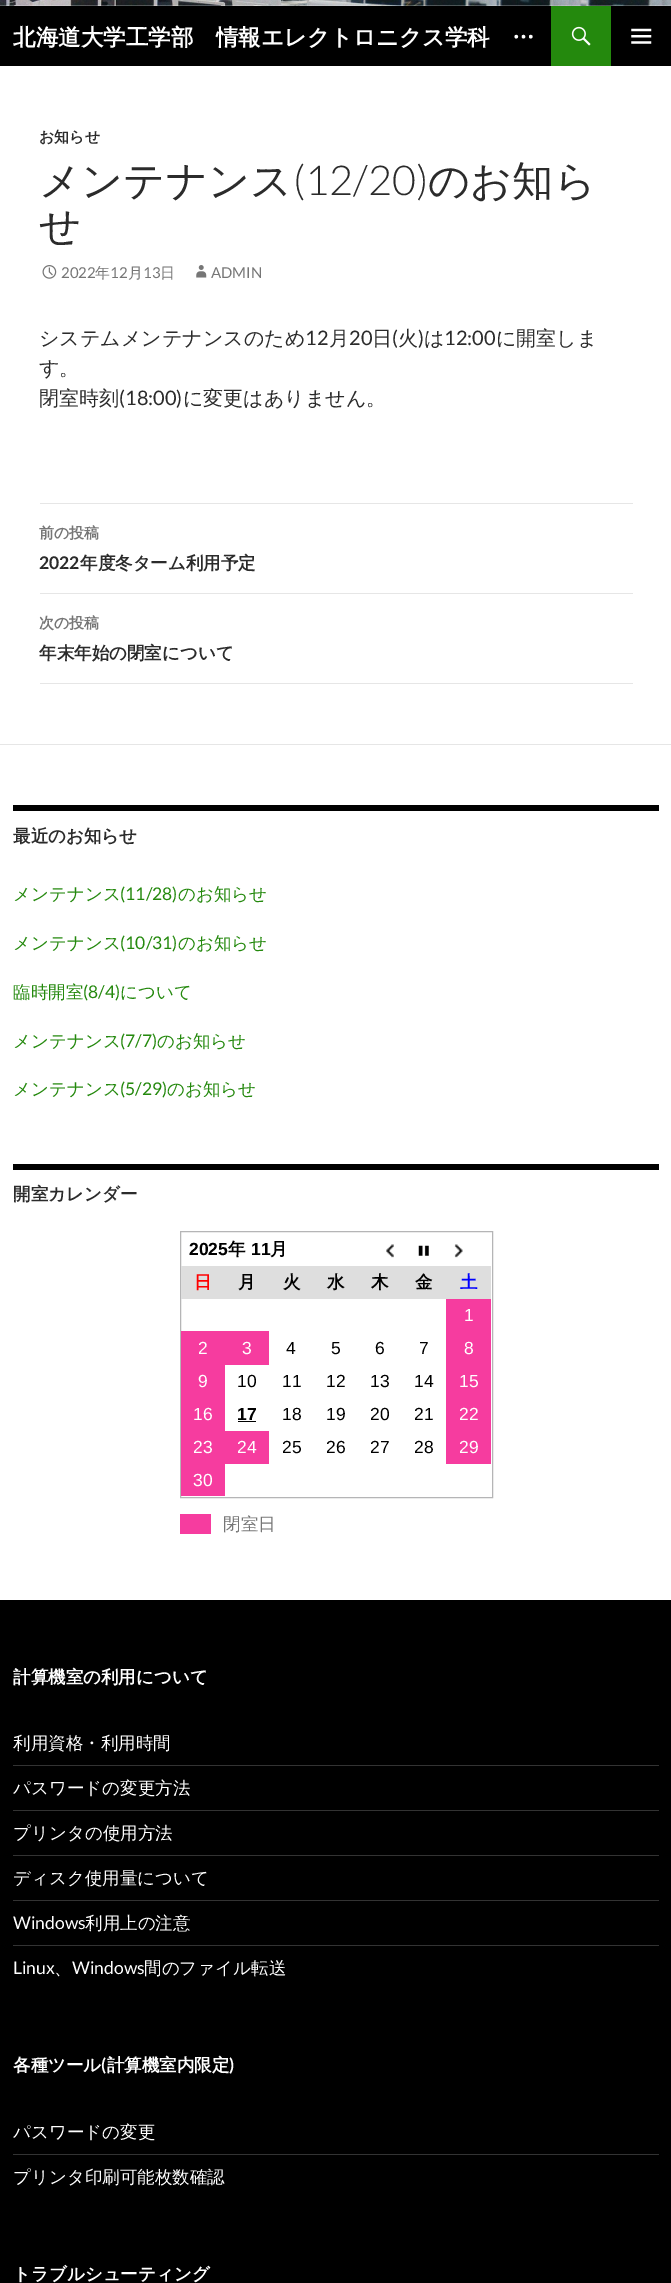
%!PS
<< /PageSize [671 2283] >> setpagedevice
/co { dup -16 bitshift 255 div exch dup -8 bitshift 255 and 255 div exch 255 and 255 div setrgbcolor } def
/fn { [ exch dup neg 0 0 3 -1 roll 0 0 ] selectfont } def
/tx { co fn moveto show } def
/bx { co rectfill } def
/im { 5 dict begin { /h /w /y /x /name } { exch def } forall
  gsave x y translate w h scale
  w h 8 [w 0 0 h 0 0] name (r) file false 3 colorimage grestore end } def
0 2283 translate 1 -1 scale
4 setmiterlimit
0 0 671 2283 16#FFFFFF bx
(media/1.raw) 0 0 671 6 im
0 6 671 60 16#000000 bx
551 6 60 60 16#24890D bx
(media/2.raw) 571 26 20 20 im
(media/3.raw) 631 28 21 16 im
(media/4.raw) 42 265 15 14 im
(media/5.raw) 196 265 11 13 im
40 503 593 1 16#E6E6E6 bx
40 593 593 1 16#E6E6E6 bx
40 683 593 1 16#E6E6E6 bx
0 744 671 1 16#E6E6E6 bx
13 805 646 6 16#000000 bx
13 1164 646 6 16#000000 bx
16#B5B5B6 co
180.5 1231.5 312 266 rectstroke
(media/6.raw) 386 1244 8 14 im
(media/7.raw) 418 1245 11 11 im
(media/8.raw) 454 1244 9 14 im
181 1266 310 33 16#DEDEDE bx
446 1299 45 165 16#F63C9F bx
181 1331 88 34 16#F63C9F bx
181 1365 44 131 16#F63C9F bx
238 1421 18 1 16#000000 bx
225 1431 44 33 16#F63C9F bx
180 1514 31 20 16#F63C9F bx
0 1600 671 683 16#000000 bx
13 1765 646 1 16#333333 bx
13 1810 646 1 16#333333 bx
13 1855 646 1 16#333333 bx
13 1900 646 1 16#333333 bx
13 1945 646 1 16#333333 bx
13 2154 646 1 16#333333 bx
(北海道大学工学部　情報エレクトロニクス学科　…) 13 45 /WenQuanYiZenHei-Bold 22.5 16#FFFFFF tx
(お知らせ) 39 142 /WenQuanYiZenHei-Bold 15 16#2B2B2B tx
(メンテナンス) 39 195 /WenQuanYiZenHei-Medium 41.25 16#2B2B2B tx
(\(12/20\)) 293 195 /Lato-Light 41.25 16#2B2B2B tx
(のお知ら) 428 195 /WenQuanYiZenHei-Medium 41.25 16#2B2B2B tx
(せ) 39 240 /WenQuanYiZenHei-Medium 41.25 16#2B2B2B tx
(2022) 61 278 /Lato-Regular 15 16#767676 tx
(年) 95 278 /WenQuanYiZenHei-Medium 15 16#767676 tx
(12) 110 278 /Lato-Regular 15 16#767676 tx
(月) 128 278 /WenQuanYiZenHei-Medium 15 16#767676 tx
(13) 143 278 /Lato-Regular 15 16#767676 tx
(日) 160 278 /WenQuanYiZenHei-Medium 15 16#767676 tx
(ADMIN) 211 278 /Lato-Regular 15 16#767676 tx
(月) 329 345 /WenQuanYiZenHei-Medium 20 16#2B2B2B tx
(日 火 は) 372 345 /WenQuanYiZenHei-Medium 20 16#2B2B2B tx
(に開室しま) 496 345 /WenQuanYiZenHei-Medium 20 16#2B2B2B tx
(システムメンテナンスのため) 39 345 /WenQuanYiZenHei-Medium 20 16#2B2B2B tx
(12) 305 345 /Lato-Regular 20 16#2B2B2B tx
(20) 349 345 /Lato-Regular 20 16#2B2B2B tx
(\() 392 345 /Lato-Regular 20 16#2B2B2B tx
(\)) 418 345 /Lato-Regular 20 16#2B2B2B tx
(12:00) 444 345 /Lato-Regular 20 16#2B2B2B tx
(す。) 39 375 /WenQuanYiZenHei-Medium 20 16#2B2B2B tx
(閉室時刻) 39 405 /WenQuanYiZenHei-Medium 20 16#2B2B2B tx
(\(18:00\)) 119 405 /Lato-Regular 20 16#2B2B2B tx
(に変更はありません。) 183 405 /WenQuanYiZenHei-Medium 20 16#2B2B2B tx
(前の投稿) 39 538 /WenQuanYiZenHei-Bold 15 16#767676 tx
(2022) 39 569 /Lato-Bold 17.5 16#2B2B2B tx
(年度冬ターム利用予定) 80 569 /WenQuanYiZenHei-Bold 17.5 16#2B2B2B tx
(次の投稿) 39 628 /WenQuanYiZenHei-Bold 15 16#767676 tx
(年末年始の閉室について) 39 659 /WenQuanYiZenHei-Bold 17.5 16#2B2B2B tx
(最近のお知らせ) 13 842 /WenQuanYiZenHei-Bold 17.5 16#2B2B2B tx
(メンテナンス) 13 900 /WenQuanYiZenHei-Medium 17.5 16#24890D tx
(\(11/28\)) 120 900 /Lato-Regular 17.5 16#24890D tx
(のお知らせ) 178 900 /WenQuanYiZenHei-Medium 17.5 16#24890D tx
(メンテナンス) 13 949 /WenQuanYiZenHei-Medium 17.5 16#24890D tx
(\(10/31\)) 120 949 /Lato-Regular 17.5 16#24890D tx
(のお知らせ) 178 949 /WenQuanYiZenHei-Medium 17.5 16#24890D tx
(臨時開室) 13 998 /WenQuanYiZenHei-Medium 17.5 16#24890D tx
(\(8/4\)) 83 998 /Lato-Regular 17.5 16#24890D tx
(について) 120 998 /WenQuanYiZenHei-Medium 17.5 16#24890D tx
(メンテナンス) 13 1047 /WenQuanYiZenHei-Medium 17.5 16#24890D tx
(\(7/7\)) 120 1047 /Lato-Regular 17.5 16#24890D tx
(のお知らせ) 157 1047 /WenQuanYiZenHei-Medium 17.5 16#24890D tx
(メンテナンス) 13 1095 /WenQuanYiZenHei-Medium 17.5 16#24890D tx
(\(5/29\)) 120 1095 /Lato-Regular 17.5 16#24890D tx
(のお知らせ) 167 1095 /WenQuanYiZenHei-Medium 17.5 16#24890D tx
(開室カレンダー) 13 1200 /WenQuanYiZenHei-Bold 17.5 16#2B2B2B tx
(2025) 189 1255 /LiberationSans-Bold 17.5 16#000000 tx
(年) 228 1255 /WenQuanYiZenHei-Bold 17.5 16#000000 tx
(11) 251 1255 /LiberationSans-Bold 17.5 16#000000 tx
(月) 270 1255 /WenQuanYiZenHei-Bold 17.5 16#000000 tx
(日) 194 1288 /WenQuanYiZenHei-Bold 17.5 16#FF0000 tx
(月) 238 1288 /WenQuanYiZenHei-Bold 17.5 16#000000 tx
(火) 283 1288 /WenQuanYiZenHei-Bold 17.5 16#000000 tx
(水) 327 1288 /WenQuanYiZenHei-Bold 17.5 16#000000 tx
(木) 371 1288 /WenQuanYiZenHei-Bold 17.5 16#000000 tx
(金) 415 1288 /WenQuanYiZenHei-Bold 17.5 16#000000 tx
(土) 460 1288 /WenQuanYiZenHei-Bold 17.5 16#0000FF tx
(1) 464 1321 /LiberationSans-Regular 17.5 16#FFFFFF tx
(2) 198 1354 /LiberationSans-Regular 17.5 16#FFFFFF tx
(3) 242 1354 /LiberationSans-Regular 17.5 16#FFFFFF tx
(4) 286 1354 /LiberationSans-Regular 17.5 16#000000 tx
(5) 331 1354 /LiberationSans-Regular 17.5 16#000000 tx
(6) 375 1354 /LiberationSans-Regular 17.5 16#000000 tx
(7) 419 1354 /LiberationSans-Regular 17.5 16#000000 tx
(8) 464 1354 /LiberationSans-Regular 17.5 16#FFFFFF tx
(9) 198 1387 /LiberationSans-Regular 17.5 16#FFFFFF tx
(10) 237 1387 /LiberationSans-Regular 17.5 16#000000 tx
(11) 282 1387 /LiberationSans-Regular 17.5 16#000000 tx
(12) 326 1387 /LiberationSans-Regular 17.5 16#000000 tx
(13) 370 1387 /LiberationSans-Regular 17.5 16#000000 tx
(14) 414 1387 /LiberationSans-Regular 17.5 16#000000 tx
(15) 459 1387 /LiberationSans-Regular 17.5 16#FFFFFF tx
(16) 193 1420 /LiberationSans-Regular 17.5 16#FFFFFF tx
(17) 237 1420 /LiberationSans-Bold 17.5 16#000000 tx
(18) 282 1420 /LiberationSans-Regular 17.5 16#000000 tx
(19) 326 1420 /LiberationSans-Regular 17.5 16#000000 tx
(20) 370 1420 /LiberationSans-Regular 17.5 16#000000 tx
(21) 414 1420 /LiberationSans-Regular 17.5 16#000000 tx
(22) 459 1420 /LiberationSans-Regular 17.5 16#FFFFFF tx
(23) 193 1453 /LiberationSans-Regular 17.5 16#FFFFFF tx
(24) 237 1453 /LiberationSans-Regular 17.5 16#FFFFFF tx
(25) 282 1453 /LiberationSans-Regular 17.5 16#000000 tx
(26) 326 1453 /LiberationSans-Regular 17.5 16#000000 tx
(27) 370 1453 /LiberationSans-Regular 17.5 16#000000 tx
(28) 414 1453 /LiberationSans-Regular 17.5 16#000000 tx
(29) 459 1453 /LiberationSans-Regular 17.5 16#FFFFFF tx
(30) 193 1486 /LiberationSans-Regular 17.5 16#FFFFFF tx
(閉室日) 223 1530 /WenQuanYiZenHei-Medium 17.5 16#767676 tx
(計算機室の利用について) 13 1683 /WenQuanYiZenHei-Bold 17.5 16#FFFFFF tx
(利用資格・利用時間) 13 1749 /WenQuanYiZenHei-Medium 17.5 16#FFFFFF tx
(パスワードの変更方法) 13 1794 /WenQuanYiZenHei-Medium 17.5 16#FFFFFF tx
(プリンタの使用方法) 13 1839 /WenQuanYiZenHei-Medium 17.5 16#FFFFFF tx
(ディスク使用量について) 13 1884 /WenQuanYiZenHei-Medium 17.5 16#FFFFFF tx
(Windows) 13 1929 /Lato-Regular 17.5 16#FFFFFF tx
(利用上の注意) 85 1929 /WenQuanYiZenHei-Medium 17.5 16#FFFFFF tx
(Linux) 13 1974 /Lato-Regular 17.5 16#FFFFFF tx
(、) 54 1974 /WenQuanYiZenHei-Medium 17.5 16#FFFFFF tx
(Windows) 72 1974 /Lato-Regular 17.5 16#FFFFFF tx
(間のファイル転送) 144 1974 /WenQuanYiZenHei-Medium 17.5 16#FFFFFF tx
(各種ツール 計算機室内限定) 13 2071 /WenQuanYiZenHei-Bold 17.5 16#FFFFFF tx
(\() 101 2071 /Lato-Bold 17.5 16#FFFFFF tx
(\)) 229 2071 /Lato-Bold 17.5 16#FFFFFF tx
(パスワードの変更) 13 2138 /WenQuanYiZenHei-Medium 17.5 16#FFFFFF tx
(プリンタ印刷可能枚数確認) 13 2183 /WenQuanYiZenHei-Medium 17.5 16#FFFFFF tx
(トラブルシューティング) 13 2280 /WenQuanYiZenHei-Bold 17.5 16#FFFFFF tx
showpage
